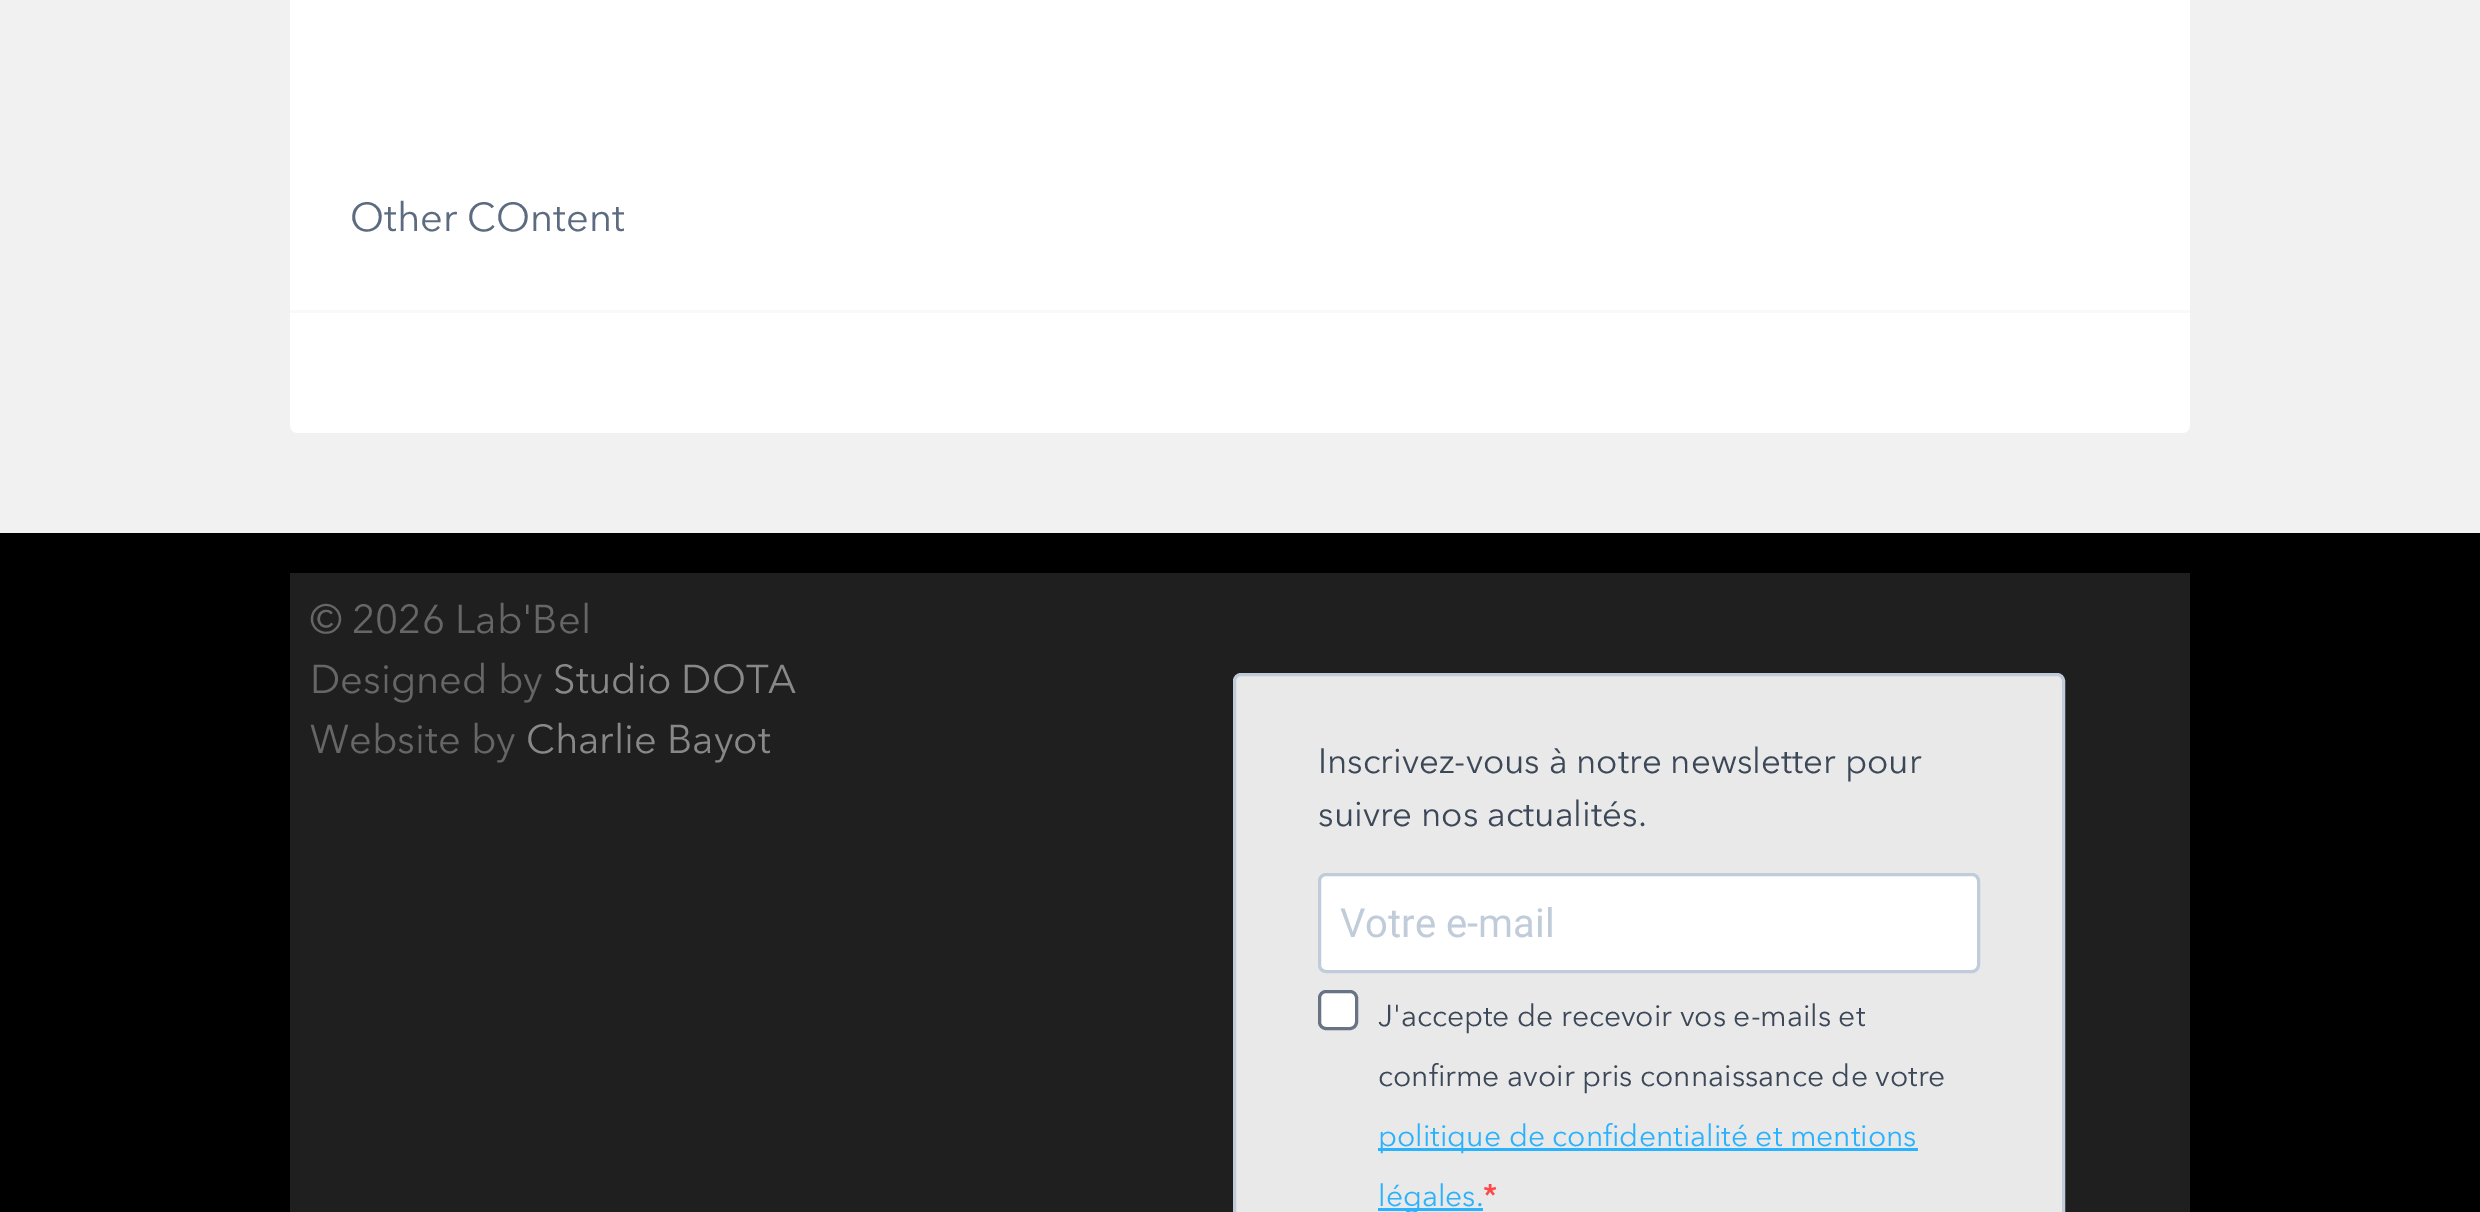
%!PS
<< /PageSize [2480 1212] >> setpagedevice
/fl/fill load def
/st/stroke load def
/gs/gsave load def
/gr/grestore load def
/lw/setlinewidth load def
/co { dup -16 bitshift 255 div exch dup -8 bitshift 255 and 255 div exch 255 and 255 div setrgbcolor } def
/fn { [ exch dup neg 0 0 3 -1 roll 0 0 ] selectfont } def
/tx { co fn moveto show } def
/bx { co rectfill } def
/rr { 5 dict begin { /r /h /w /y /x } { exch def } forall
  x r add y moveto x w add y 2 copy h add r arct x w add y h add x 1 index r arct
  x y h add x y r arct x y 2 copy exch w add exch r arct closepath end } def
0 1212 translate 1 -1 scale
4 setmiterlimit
0 0 2480 1212 16#F1F1F1 bx
16#FFFFFF co
290 -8 1900 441 8 rr fl
290 310 1900 3 16#F8F9FA bx
0 533 2480 679 16#000000 bx
290 573 1900 639 16#1F1F1F bx
16#E9E9E9 co
1234.5 674.5 829 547 6.5 rr gs fl gr
16#C0CCD9 co
3 lw
st
16#FFFFFF co
1319.5 874.5 659 97 6.5 rr gs fl gr
16#C0CCDA co
st
16#FFFFFF co
1319.5 991.5 37 37 6.5 rr gs fl gr
16#687484 co
st
1378 1148 540 3 16#2BB2FC bx
1378 1208 105 3 16#2BB2FC bx
(Other COntent) 350 231 /AvenirNext-Regular 40 16#5C6B80 tx
(© 2026 Lab'Bel) 310 633 /AvenirNext-Regular 40 16#666666 tx
(Designed by) 310 693 /AvenirNext-Regular 40 16#666666 tx
(Studio DOTA) 553 693 /AvenirNext-Regular 40 16#888888 tx
(Website by) 310 753 /AvenirNext-Regular 40 16#666666 tx
(Charlie Bayot) 526 753 /AvenirNext-Regular 40 16#888888 tx
(Inscrivez-vous à notre newsletter pour) 1318 773 /AvenirNext-Regular 35 16#3C4858 tx
(suivre nos actualités.) 1318 826 /AvenirNext-Regular 35 16#3C4858 tx
(Votre e-mail) 1340 937 /Roboto-Regular 40 16#C0CCDA tx
(J'accepte de recevoir vos e-mails et) 1378 1026 /AvenirNext-Regular 30 16#3C4858 tx
(confirme avoir pris connaissance de votre) 1378 1086 /AvenirNext-Regular 30 16#3C4858 tx
(politique de confidentialité et mentions) 1378 1146 /AvenirNext-Regular 30 16#2BB2FC tx
(légales.) 1378 1206 /AvenirNext-Regular 30 16#2BB2FC tx
(*) 1483 1206 /AvenirNext-Bold 30 16#FF4949 tx
showpage
